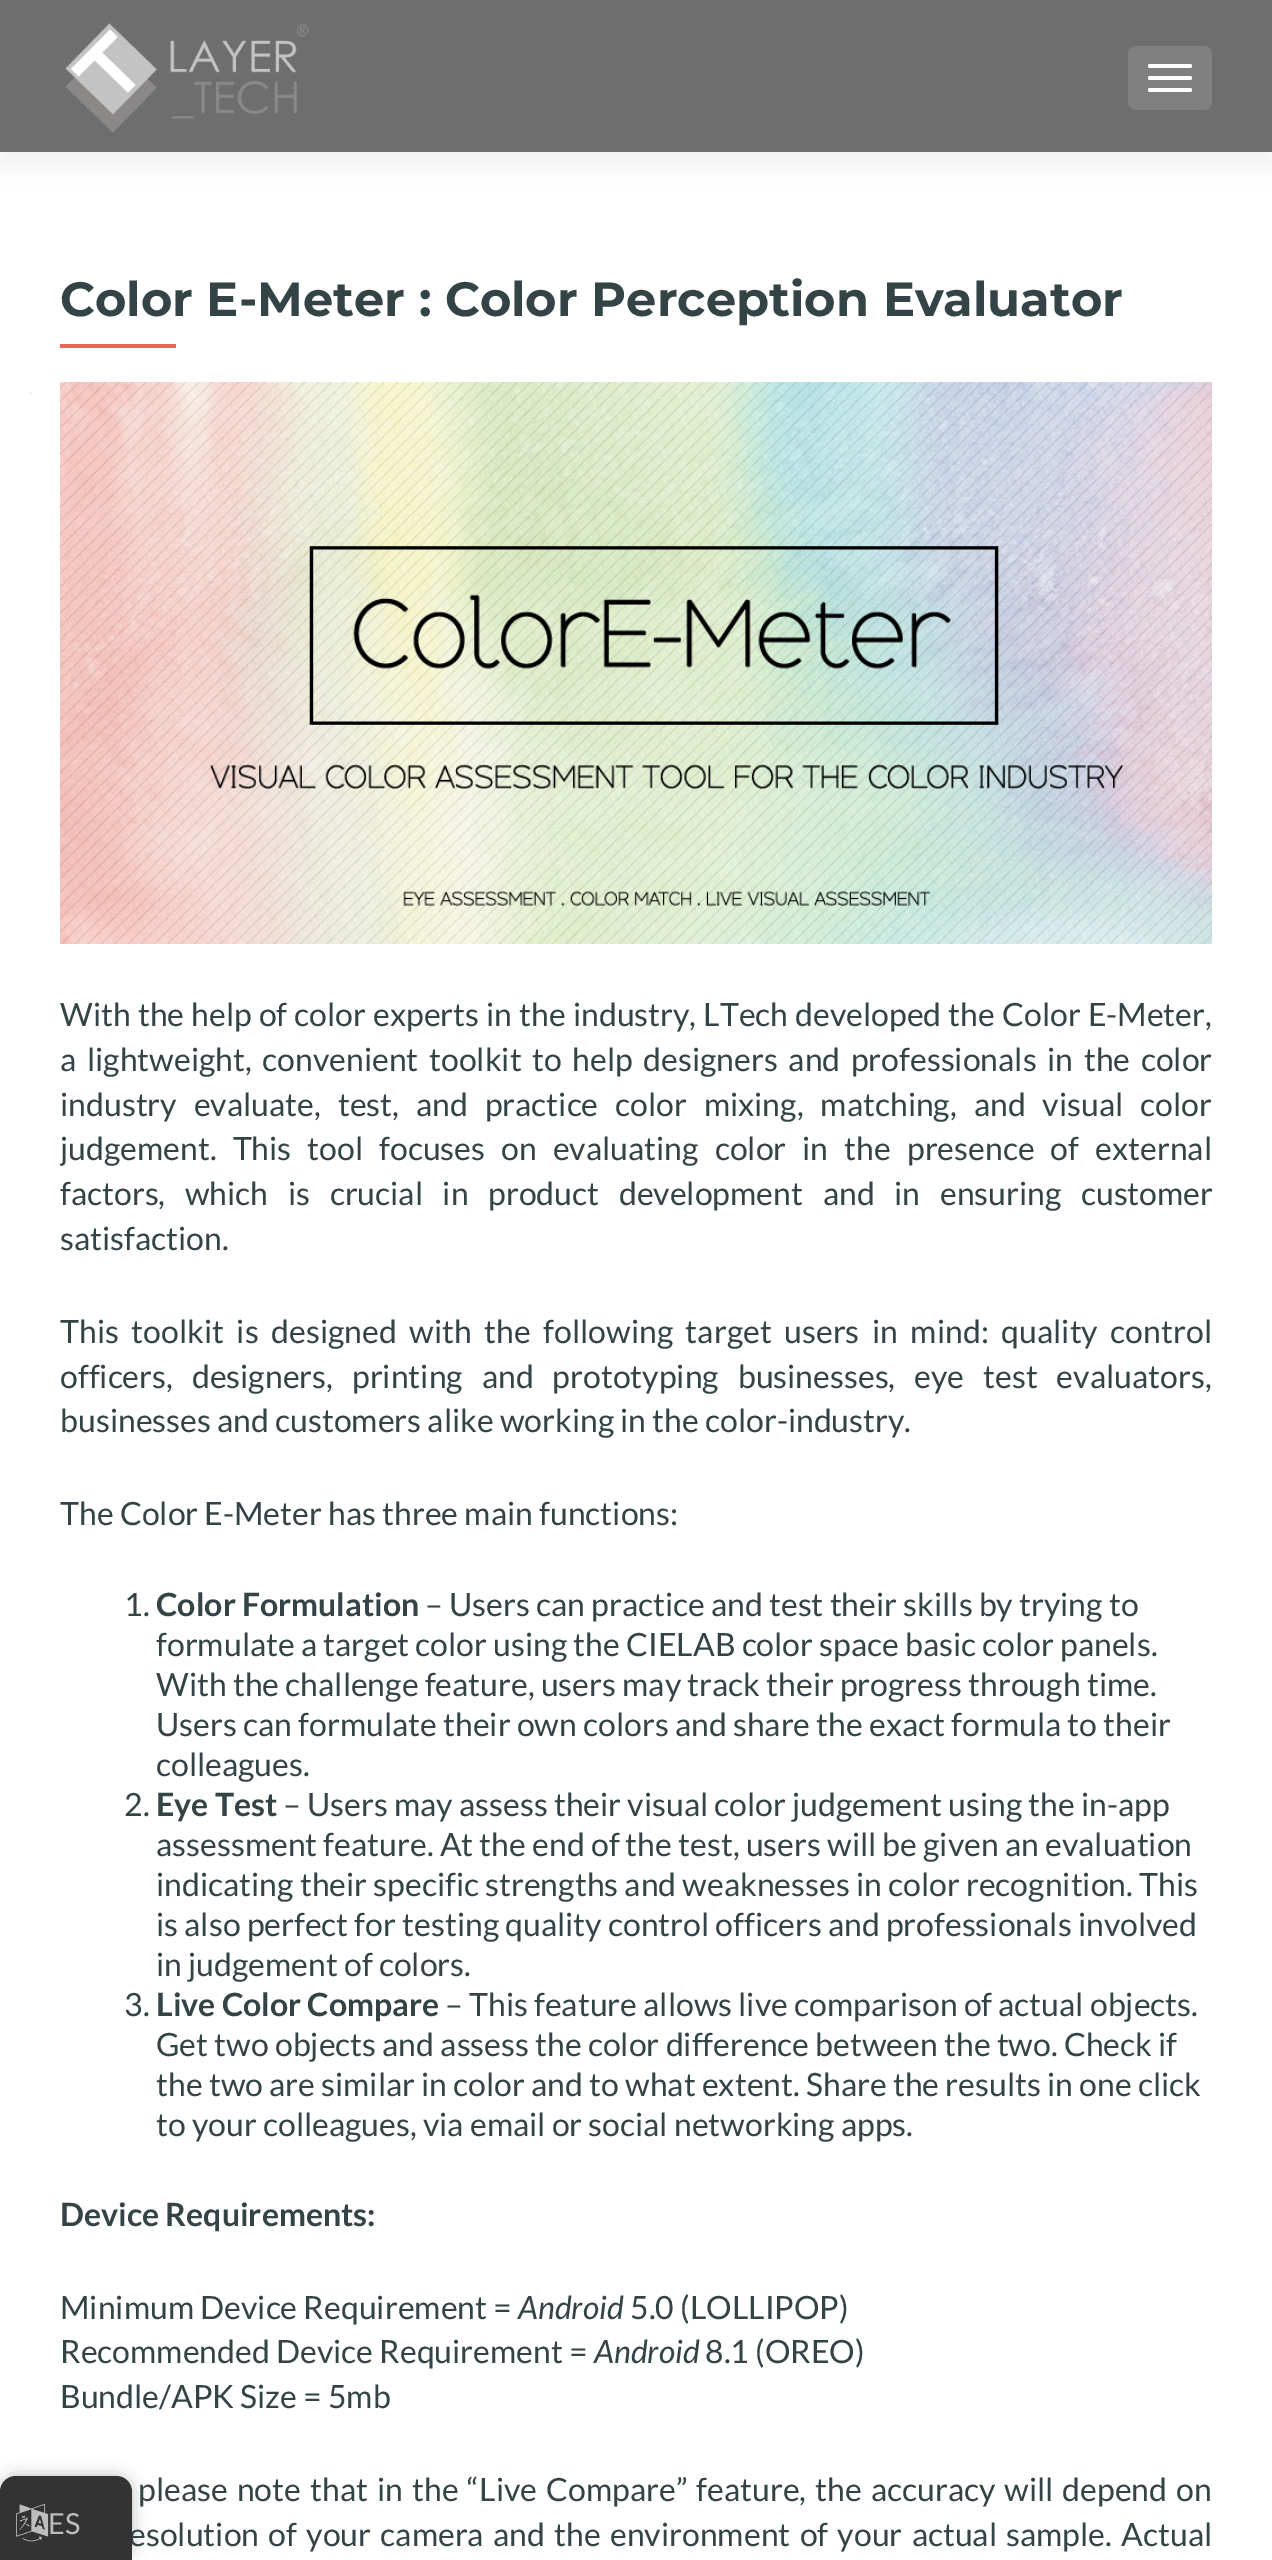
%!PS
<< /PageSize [1272 2560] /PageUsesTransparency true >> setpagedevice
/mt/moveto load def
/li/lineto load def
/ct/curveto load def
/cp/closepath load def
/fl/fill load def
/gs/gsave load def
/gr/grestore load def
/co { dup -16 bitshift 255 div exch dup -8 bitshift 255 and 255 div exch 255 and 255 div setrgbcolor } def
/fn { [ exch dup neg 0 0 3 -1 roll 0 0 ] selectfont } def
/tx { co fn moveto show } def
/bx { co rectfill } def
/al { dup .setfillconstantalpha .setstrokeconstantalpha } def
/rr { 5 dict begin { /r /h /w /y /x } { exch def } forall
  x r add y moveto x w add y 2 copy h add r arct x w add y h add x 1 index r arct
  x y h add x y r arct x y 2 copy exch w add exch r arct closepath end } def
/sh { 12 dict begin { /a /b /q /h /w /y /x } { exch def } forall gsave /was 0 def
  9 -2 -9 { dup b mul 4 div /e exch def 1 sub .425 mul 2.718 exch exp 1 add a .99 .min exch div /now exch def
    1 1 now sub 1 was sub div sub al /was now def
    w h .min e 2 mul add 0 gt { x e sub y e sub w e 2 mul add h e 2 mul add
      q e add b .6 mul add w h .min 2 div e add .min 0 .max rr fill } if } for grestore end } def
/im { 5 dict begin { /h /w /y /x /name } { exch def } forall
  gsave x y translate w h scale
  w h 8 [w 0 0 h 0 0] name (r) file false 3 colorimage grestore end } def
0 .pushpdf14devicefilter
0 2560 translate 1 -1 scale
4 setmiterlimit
0 0 1272 2560 16#FFFFFF bx
16#323232 co
0 10 1272 152 0 11 .08 sh
0 0 1272 152 16#6E6E6F bx
(media/1.raw) 65 23 244 110 im
16#808080 co
1128 46 84 64 8 rr fl
16#FFFFFF co
1148 64 44 4 2 rr fl
1148 76 44 4 2 rr fl
1148 88 44 4 2 rr fl
30 392 2 2 16#F2F2F2 bx
60 344 116 4 16#E96656 bx
(media/2.raw) 60 382 1152 562 im
16#000000 co
0 2476 132 84 16 8 .25 sh
(Color E-Meter : Color Perception Evaluator) 60 316 /Montserrat-Bold 48 16#334346 tx
/Lato-Regular 32 fn
60 1026 mt .9 0 32 (With the help of color experts in the industry, LTech developed the Color E-Meter,) widthshow
60 1071 mt 4.4 0 32 (a lightweight, convenient toolkit to help designers and professionals in the color) widthshow
60 1116 mt 10.75 0 32 (industry evaluate, test, and practice color mixing, matching, and visual color) widthshow
gs
60 272 1152 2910 rectclip
60 1160 mt 9.9 0 32 (judgement. This tool focuses on evaluating color in the presence of external) widthshow
gr
60 1205 mt 13.5 0 32 (factors, which is crucial in product development and in ensuring customer) widthshow
(satisfaction.) 60 1250 /Lato-Regular 32 16#334346 tx
60 1343 mt 6.4 0 32 (This toolkit is designed with the following target users in mind: quality control) widthshow
60 1388 mt 12.75 0 32 (officers, designers, printing and prototyping businesses, eye test evaluators,) widthshow
(businesses and customers alike working in the color-industry.) 60 1432 /Lato-Regular 32 16#334346 tx
(The Color E-Meter has three main functions:) 60 1525 /Lato-Regular 32 16#334346 tx
(1.) 124 1616 /Lato-Regular 32 16#334346 tx
(Color Formulation) 156 1616 /Lato-Bold 32 16#334346 tx
(– Users can practice and test their skills by trying to) 425 1616 /Lato-Regular 32 16#334346 tx
(formulate a target color using the CIELAB color space basic color panels.) 156 1656 /Lato-Regular 32 16#334346 tx
(With the challenge feature, users may track their progress through time.) 156 1696 /Lato-Regular 32 16#334346 tx
(Users can formulate their own colors and share the exact formula to their) 156 1736 /Lato-Regular 32 16#334346 tx
(colleagues.) 156 1776 /Lato-Regular 32 16#334346 tx
(2.) 124 1816 /Lato-Regular 32 16#334346 tx
(Eye Test) 156 1816 /Lato-Bold 32 16#334346 tx
(– Users may assess their visual color judgement using the in-app) 283 1816 /Lato-Regular 32 16#334346 tx
(assessment feature. At the end of the test, users will be given an evaluation) 156 1856 /Lato-Regular 32 16#334346 tx
(indicating their specific strengths and weaknesses in color recognition. This) 156 1896 /Lato-Regular 32 16#334346 tx
(is also perfect for testing quality control officers and professionals involved) 156 1936 /Lato-Regular 32 16#334346 tx
(in judgement of colors.) 156 1976 /Lato-Regular 32 16#334346 tx
(3.) 124 2016 /Lato-Regular 32 16#334346 tx
(Live Color Compare) 156 2016 /Lato-Bold 32 16#334346 tx
(– This feature allows live comparison of actual objects.) 445 2016 /Lato-Regular 32 16#334346 tx
(Get two objects and assess the color difference between the two. Check if) 156 2056 /Lato-Regular 32 16#334346 tx
(the two are similar in color and to what extent. Share the results in one click) 156 2096 /Lato-Regular 32 16#334346 tx
(to your colleagues, via email or social networking apps.) 156 2136 /Lato-Regular 32 16#334346 tx
(Device Requirements:) 60 2226 /Lato-Bold 32 16#334346 tx
(Minimum Device Requirement =) 60 2319 /Lato-Regular 32 16#334346 tx
(Android) 518 2319 /Lato-Italic 32 16#334346 tx
(5.0 \(LOLLIPOP\)) 630 2319 /Lato-Regular 32 16#334346 tx
(Recommended Device Requirement =) 60 2363 /Lato-Regular 32 16#334346 tx
(Android) 594 2363 /Lato-Italic 32 16#334346 tx
(8.1 \(OREO\)) 705 2363 /Lato-Regular 32 16#334346 tx
(Bundle/APK Size = 5mb) 60 2408 /Lato-Regular 32 16#334346 tx
138 2501 mt 2.9 0 32 (please note that in the “Live Compare” feature, the accuracy will depend on) widthshow
129 2546 mt 3.1 0 32 (esolution of your camera and the environment of your actual sample. Actual) widthshow
16#333333 co
16 2476 mt 116 2476 li 125 2476 132 2483 132 2492 ct 132 2560 li 0 2560 li 0 2492 li 0 2483 7 2476 16 2476 ct cp fl
(media/3.raw) 16 2504 33 38 im
(ES) 48 2534 /Lato-Regular 29 16#BDBDBD tx
.poppdf14devicefilter showpage
